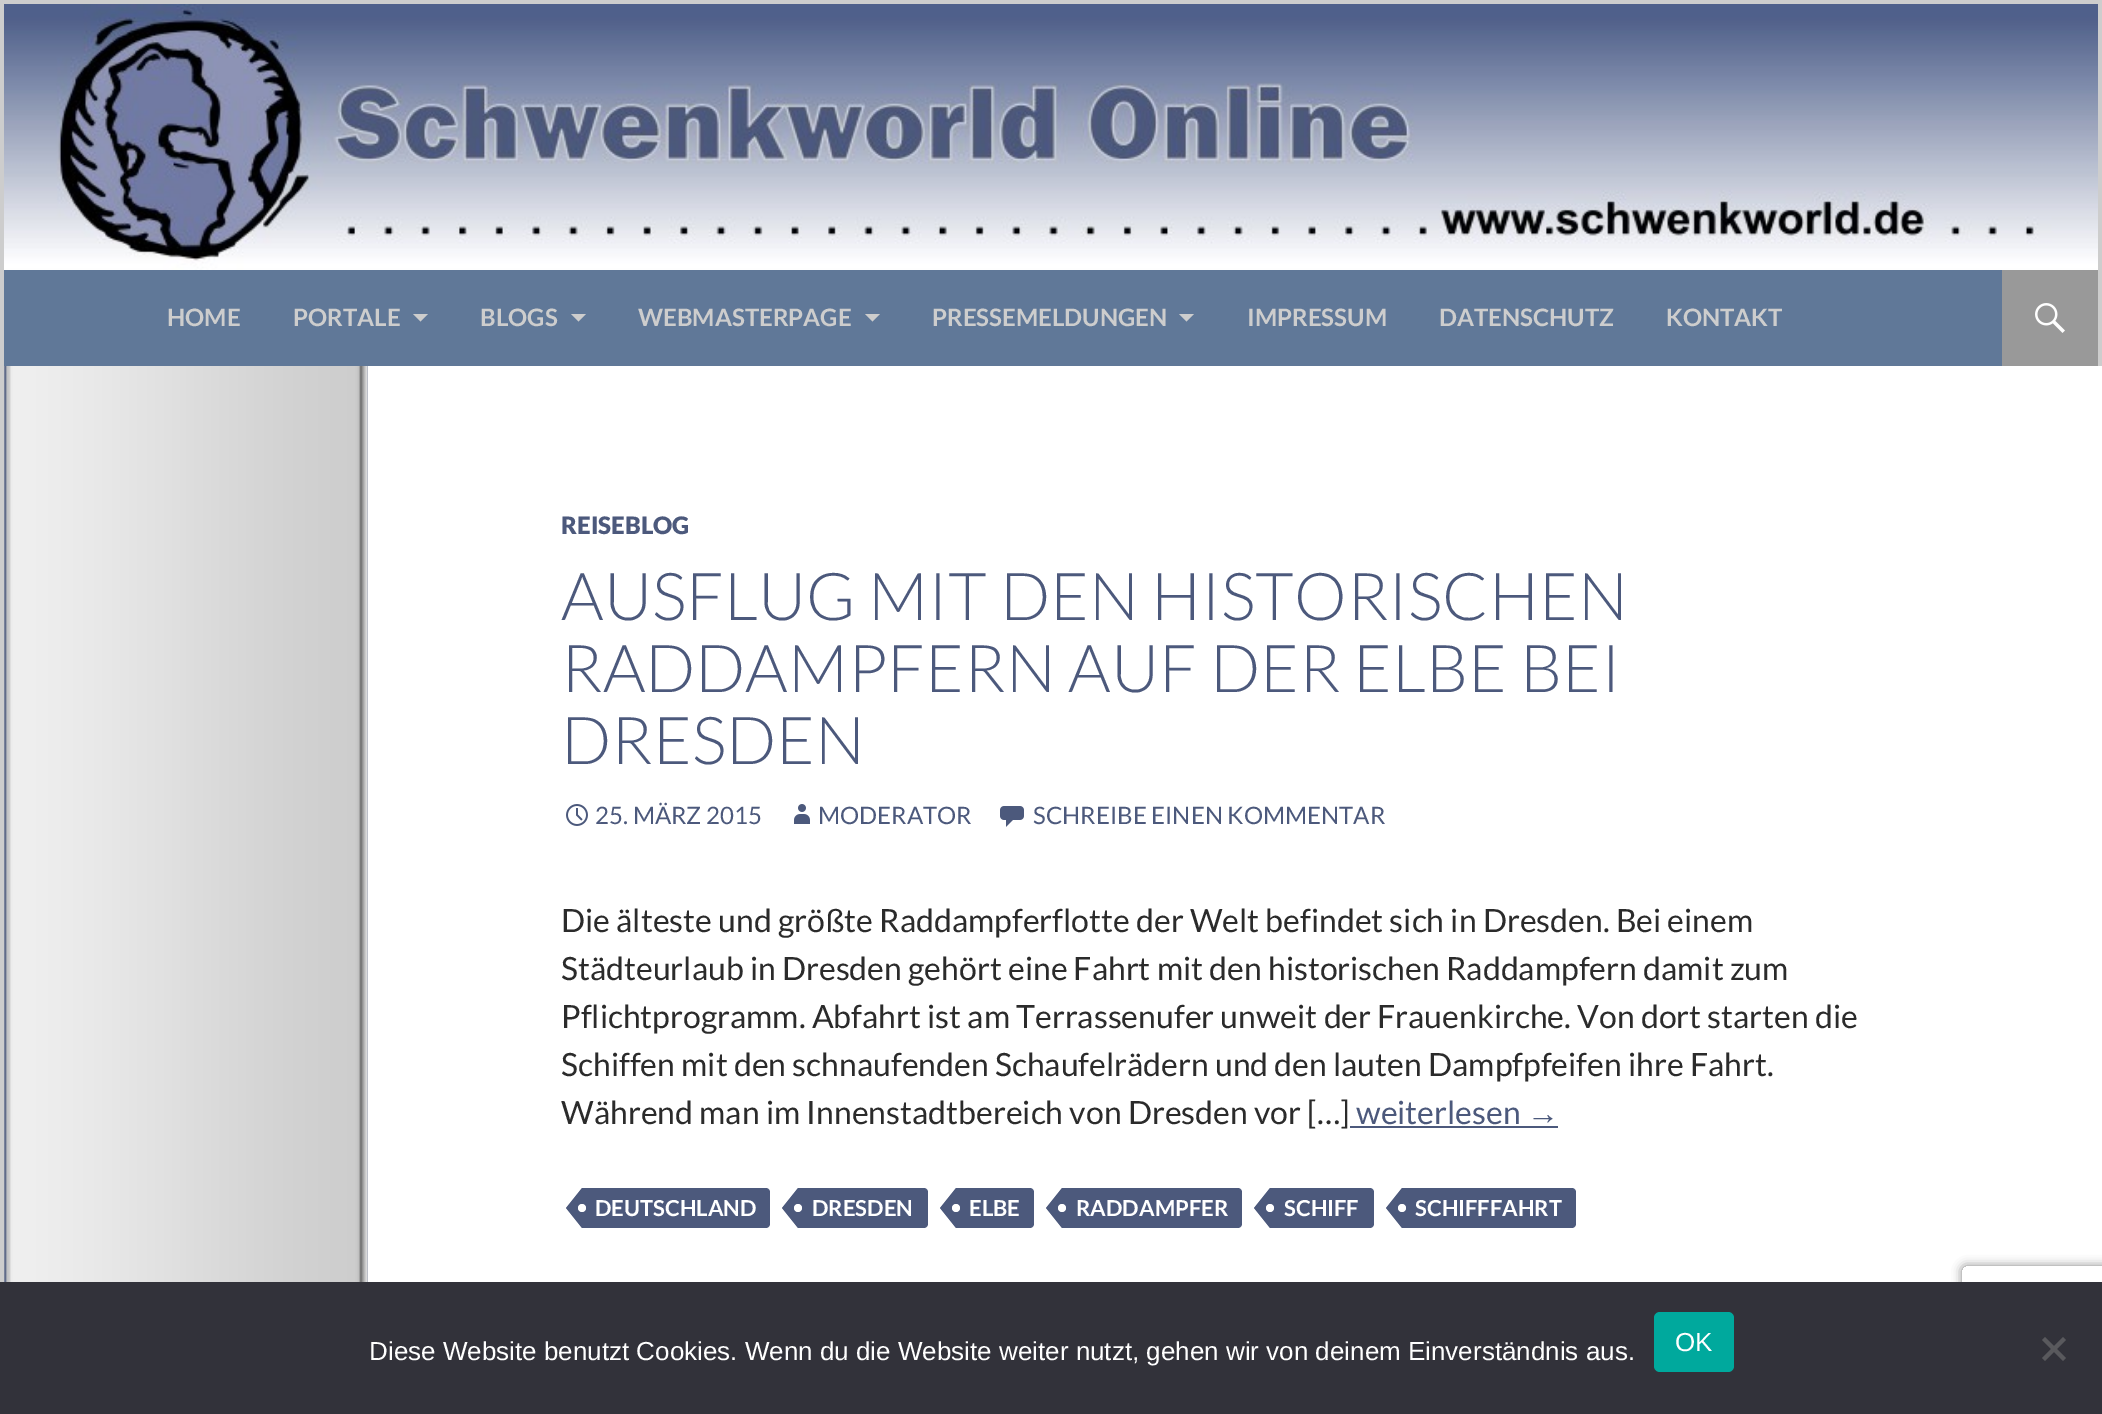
%!PS
<< /PageSize [2102 1414] /PageUsesTransparency true >> setpagedevice
/mt/moveto load def
/li/lineto load def
/ct/curveto load def
/cp/closepath load def
/fl/fill load def
/gs/gsave load def
/gr/grestore load def
/co { dup -16 bitshift 255 div exch dup -8 bitshift 255 and 255 div exch 255 and 255 div setrgbcolor } def
/fn { [ exch dup neg 0 0 3 -1 roll 0 0 ] selectfont } def
/tx { co fn moveto show } def
/bx { co rectfill } def
/al { dup .setfillconstantalpha .setstrokeconstantalpha } def
/ci { newpath 0 360 arc closepath } def
/rr { 5 dict begin { /r /h /w /y /x } { exch def } forall
  x r add y moveto x w add y 2 copy h add r arct x w add y h add x 1 index r arct
  x y h add x y r arct x y 2 copy exch w add exch r arct closepath end } def
/sh { 12 dict begin { /a /b /q /h /w /y /x } { exch def } forall gsave /was 0 def
  9 -2 -9 { dup b mul 4 div /e exch def 1 sub .425 mul 2.718 exch exp 1 add a .99 .min exch div /now exch def
    1 1 now sub 1 was sub div sub al /was now def
    w h .min e 2 mul add 0 gt { x e sub y e sub w e 2 mul add h e 2 mul add
      q e add b .6 mul add w h .min 2 div e add .min 0 .max rr fill } if } for grestore end } def
/im { 5 dict begin { /h /w /y /x /name } { exch def } forall
  gsave x y translate w h scale
  w h 8 [w 0 0 h 0 0] name (r) file false 3 colorimage grestore end } def
0 .pushpdf14devicefilter
0 1414 translate 1 -1 scale
4 setmiterlimit
0 0 2102 1414 16#FFFFFF bx
(media/1.raw) 4 366 364 60 im
0 0 4 1282 16#CDCDCD bx
0 0 2102 4 16#CDCDCD bx
2098 0 4 366 16#CDCDCD bx
(media/2.raw) 4 4 2094 266 im
4 270 1998 96 16#607898 bx
16#CDCDCD co
413 314 mt 420.5 321.5 li 428 314 li cp fl
571 314 mt 578.5 321.5 li 586 314 li cp fl
865 314 mt 872.5 321.5 li 880 314 li cp fl
1179 314 mt 1186.5 321.5 li 1194 314 li cp fl
2002 270 96 96 16#999999 bx
(media/3.raw) 2035 303 30 30 im
(media/4.raw) 4 426 364 856 im
(media/5.raw) 566 804 22 22 im
(media/6.raw) 794 804 16 20 im
(media/7.raw) 1000 806 24 21 im
1350 1126 208 2 16#4C597C bx
582 1188 mt 766 1188 li 768 1188 770 1190 770 1192 ct 770 1224 li 770 1226 768 1228 766 1228 ct 582 1228 li cp fl
582 1188 mt 582 1228 li 566 1208 li cp fl
16#FFFFFF co
582 1208 4 ci fl
16#4C597C co
798 1188 mt 924 1188 li 926 1188 928 1190 928 1192 ct 928 1224 li 928 1226 926 1228 924 1228 ct 798 1228 li cp fl
798 1188 mt 798 1228 li 782 1208 li cp fl
16#FFFFFF co
798 1208 4 ci fl
16#4C597C co
956 1188 mt 1030 1188 li 1032 1188 1034 1190 1034 1192 ct 1034 1224 li 1034 1226 1032 1228 1030 1228 ct 956 1228 li cp fl
956 1188 mt 956 1228 li 940 1208 li cp fl
16#FFFFFF co
956 1208 4 ci fl
16#4C597C co
1062 1188 mt 1238 1188 li 1240 1188 1242 1190 1242 1192 ct 1242 1224 li 1242 1226 1240 1228 1238 1228 ct 1062 1228 li cp fl
1062 1188 mt 1062 1228 li 1046 1208 li cp fl
16#FFFFFF co
1062 1208 4 ci fl
16#4C597C co
1270 1188 mt 1370 1188 li 1372 1188 1374 1190 1374 1192 ct 1374 1224 li 1374 1226 1372 1228 1370 1228 ct 1270 1228 li cp fl
1270 1188 mt 1270 1228 li 1254 1208 li cp fl
16#FFFFFF co
1270 1208 4 ci fl
16#4C597C co
1402 1188 mt 1572 1188 li 1574 1188 1576 1190 1576 1192 ct 1576 1224 li 1576 1226 1574 1228 1572 1228 ct 1402 1228 li cp fl
1402 1188 mt 1402 1228 li 1386 1208 li cp fl
16#FFFFFF co
1402 1208 4 ci fl
gs
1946 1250 mt 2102 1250 li 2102 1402 li 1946 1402 li cp 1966 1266 mt 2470 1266 li 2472 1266 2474 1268 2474 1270 ct 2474 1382 li 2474 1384 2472 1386 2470 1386 ct 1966 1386 li 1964 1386 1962 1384 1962 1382 ct 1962 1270 li 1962 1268 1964 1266 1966 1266 ct cp eoclip newpath
16#808080 co
1962 1266 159 120 4 5 1 sh
gr
0 1282 2102 132 16#32323A bx
16#00A99D co
1654 1312 80 60 6 rr fl
16#59595D co
2063 1337 mt 2066 1340 li 2045 1361 li 2042 1358 li cp fl
2042 1340 mt 2045 1337 li 2066 1358 li 2063 1361 li cp fl
(HOME) 167 326 /Lato-Bold 24 16#CDCDCD tx
(PORTALE) 293 326 /Lato-Bold 24 16#CDCDCD tx
(BLOGS) 480 326 /Lato-Bold 24 16#CDCDCD tx
(WEBMASTERPAGE) 638 326 /Lato-Bold 24 16#CDCDCD tx
(PRESSEMELDUNGEN) 932 326 /Lato-Bold 24 16#CDCDCD tx
(IMPRESSUM) 1247 326 /Lato-Bold 24 16#CDCDCD tx
(DATENSCHUTZ) 1439 326 /Lato-Bold 24 16#CDCDCD tx
(KONTAKT) 1666 326 /Lato-Bold 24 16#CDCDCD tx
(REISEBLOG) 561 534 /Lato-Black 24 16#4C597C tx
(AUSFLUG MIT DEN HISTORISCHEN) 561 620 /Lato-Light 66 16#4C597C tx
(RADDAMPFERN AUF DER ELBE BEI) 561 692 /Lato-Light 66 16#4C597C tx
(DRESDEN) 561 764 /Lato-Light 66 16#4C597C tx
(25. MÄRZ 2015) 595 824 /Lato-Regular 24 16#4C597C tx
(MODERATOR) 818 824 /Lato-Regular 24 16#4C597C tx
(SCHREIBE EINEN KOMMENTAR) 1033 824 /Lato-Regular 24 16#4C597C tx
(Die älteste und größte Raddampferflotte der Welt befindet sich in Dresden. Bei einem) 561 932 /Lato-Regular 32 16#2B2B2B tx
(Städteurlaub in Dresden gehört eine Fahrt mit den historischen Raddampfern damit zum) 561 980 /Lato-Regular 32 16#2B2B2B tx
(Pflichtprogramm. Abfahrt ist am Terrassenufer unweit der Frauenkirche. Von dort starten die) 561 1028 /Lato-Regular 32 16#2B2B2B tx
(Schiffen mit den schnaufenden Schaufelrädern und den lauten Dampfpfeifen ihre Fahrt.) 561 1076 /Lato-Regular 32 16#2B2B2B tx
(Während man im Innenstadtbereich von Dresden vor […]) 561 1124 /Lato-Regular 32 16#2B2B2B tx
(weiterlesen) 1356 1124 /Lato-Regular 32 16#4C597C tx
(→) 1527 1124 /LiberationSans-Regular 32 16#4C597C tx
(DEUTSCHLAND) 595 1216 /Lato-Bold 22 16#FFFFFF tx
(DRESDEN) 812 1216 /Lato-Bold 22 16#FFFFFF tx
(ELBE) 969 1216 /Lato-Bold 22 16#FFFFFF tx
(RADDAMPFER) 1076 1216 /Lato-Bold 22 16#FFFFFF tx
(SCHIFF) 1284 1216 /Lato-Bold 22 16#FFFFFF tx
(SCHIFFFAHRT) 1415 1216 /Lato-Bold 22 16#FFFFFF tx
(Diese Website benutzt Cookies. Wenn du die Website weiter nutzt, gehen wir von deinem Einverständnis aus.) 369 1360 /LiberationSans-Regular 26 16#FFFFFF tx
(OK) 1675 1351 /LiberationSans-Regular 26 16#FFFFFF tx
.poppdf14devicefilter showpage
